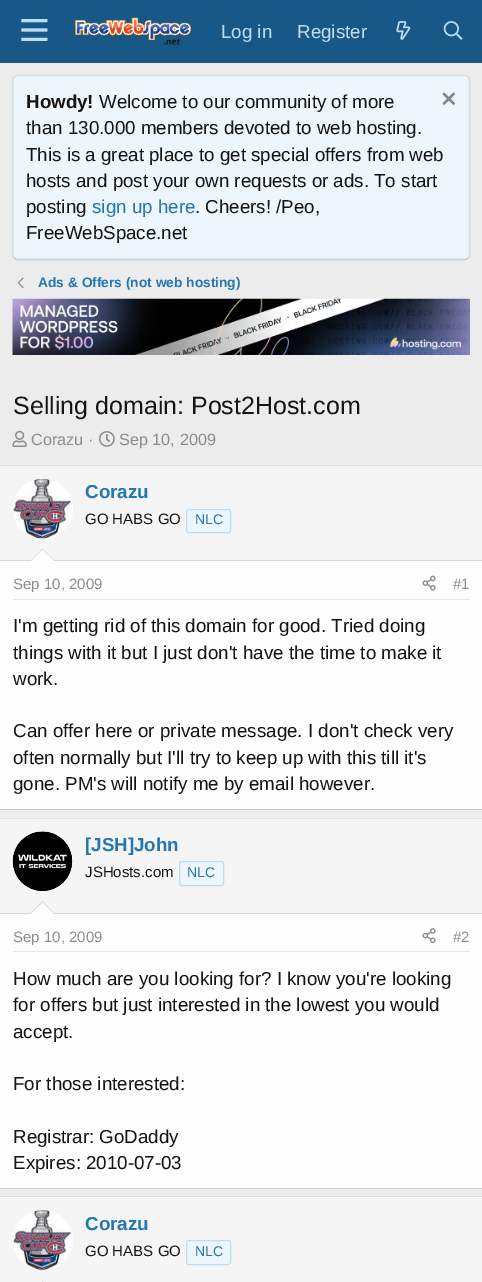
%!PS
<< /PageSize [482 1282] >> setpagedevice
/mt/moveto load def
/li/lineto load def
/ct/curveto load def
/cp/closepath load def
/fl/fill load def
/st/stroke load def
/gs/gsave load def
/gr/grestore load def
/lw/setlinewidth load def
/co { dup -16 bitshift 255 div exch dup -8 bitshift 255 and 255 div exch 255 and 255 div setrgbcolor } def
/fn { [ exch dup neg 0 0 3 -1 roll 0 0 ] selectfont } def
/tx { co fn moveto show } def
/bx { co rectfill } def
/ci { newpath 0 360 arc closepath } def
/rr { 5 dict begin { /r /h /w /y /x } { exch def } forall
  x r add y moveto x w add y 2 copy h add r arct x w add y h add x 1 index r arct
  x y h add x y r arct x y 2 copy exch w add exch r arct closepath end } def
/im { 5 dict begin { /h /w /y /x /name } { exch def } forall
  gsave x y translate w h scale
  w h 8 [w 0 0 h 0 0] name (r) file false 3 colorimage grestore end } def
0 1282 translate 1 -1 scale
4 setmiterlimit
0 0 482 1282 16#ECECEC bx
0 0 482 63 16#185886 bx
(media/1.raw) 21 19 27 22 im
(media/2.raw) 75 17 117 28 im
(media/3.raw) 396 21 15 19 im
(media/4.raw) 443 21 20 19 im
16#EDF6FD co
13 75 457 185 5 rr fl
16#DFDFDF co
1.2 lw
14.5 77 mt 15 76 16.5 75.5 17.5 75.5 ct 465 75.5 li 466 75.5 467.5 76 468 77 ct st
16#D8D8D8 co
468 77 mt 469 77.5 469.5 79 469.5 80 ct 469.5 255 li 469.5 256 469 257.5 468 258 ct st
16#CBCBCB co
468 258 mt 467.5 259 466 259.5 465 259.5 ct 17.5 259.5 li 16.5 259.5 15 259 14.5 258 ct st
16#D8D8D8 co
14.5 258 mt 13.5 257.5 13 256 13 255 ct 13 80 li 13 79 13.5 77.5 14.5 77 ct st
(media/5.raw) 442 92 13 13 im
(media/6.raw) 17 277 7 12 im
(media/7.raw) 12 298 458 57 im
(media/8.raw) 12 430 15 17 im
(media/9.raw) 99 431 16 16 im
0 561 482 248 16#FEFEFE bx
0 465 482 1 16#DFDFDF bx
0 809 482 1 16#CBCBCB bx
0 466 482 94 16#F5F5F5 bx
0 560 482 1 16#D8D8D8 bx
16#FEFEFE co
43 509 30 ci fl
(media/10.raw) 13 479 59 60 im
16#EDF6FD co
186.5 509.5 44 23 2 rr gs fl gr
16#BCDEF5 co
1 lw
st
16#D8D8D8 co
55 561 mt 30 561 li 42.5 549 li cp fl
16#FEFEFE co
54 561 mt 31 561 li 42.5 550 li cp fl
13 599 457 1 16#E7E7E7 bx
(media/11.raw) 422 575 14 16 im
0 914 482 274 16#FEFEFE bx
0 818 482 1 16#DFDFDF bx
0 1188 482 1 16#CBCBCB bx
0 819 482 94 16#F5F5F5 bx
0 913 482 1 16#D8D8D8 bx
16#FEFEFE co
43 861 30 ci fl
(media/12.raw) 12 831 61 60 im
16#EDF6FD co
179.5 861.5 44 24 2 rr gs fl gr
16#BCDEF5 co
st
16#D8D8D8 co
55 914 mt 30 914 li 42.5 901 li cp fl
16#FEFEFE co
54 914 mt 31 914 li 42.5 902.5 li cp fl
13 951 457 1 16#E7E7E7 bx
(media/13.raw) 422 928 14 16 im
0 1197 482 1 16#FEFEFE bx
0 1196 482 1 16#DFDFDF bx
0 1198 482 84 16#F5F5F5 bx
16#FEFEFE co
43 1240 30 ci fl
(media/14.raw) 13 1210 59 60 im
16#EDF6FD co
186.5 1240.5 44 24 2 rr gs fl gr
16#BCDEF5 co
st
16#D8D8D8 co
55 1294 mt 30 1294 li 42.5 1281 li cp fl
(Log in) 221 38 /LiberationSans-Regular 18.75 16#BCDEF5 tx
(Register) 297 38 /LiberationSans-Regular 18.75 16#BCDEF5 tx
(Howdy!) 26 108 /LiberationSans-Bold 18.75 16#141414 tx
(Welcome to our community of more) 99 108 /LiberationSans-Regular 18.75 16#141414 tx
(than 130.000 members devoted to web hosting.) 26 134 /LiberationSans-Regular 18.75 16#141414 tx
(This is a great place to get special offers from web) 26 161 /LiberationSans-Regular 18.75 16#141414 tx
(hosts and post your own requests or ads. To start) 26 187 /LiberationSans-Regular 18.75 16#141414 tx
(posting) 26 213 /LiberationSans-Regular 18.75 16#141414 tx
(sign up here) 92 213 /LiberationSans-Regular 18.75 16#2577B1 tx
(. Cheers! /Peo,) 195 213 /LiberationSans-Regular 18.75 16#141414 tx
(FreeWebSpace.net) 26 239 /LiberationSans-Regular 18.75 16#141414 tx
(Ads & Offers \(not web hosting\)) 38 287 /LiberationSans-Bold 13.75 16#2577B1 tx
(Selling domain: Post2Host.com) 13 414 /LiberationSans-Regular 25 16#141414 tx
(Corazu ·) 31 445 /LiberationSans-Regular 16.25 16#8C8C8C tx
(Sep 10, 2009) 119 445 /LiberationSans-Regular 16.25 16#8C8C8C tx
(Corazu) 85 498 /LiberationSans-Bold 18.75 16#2577B1 tx
(GO HABS GO) 85 524 /LiberationSans-Regular 15 16#141414 tx
(NLC) 195 524 /LiberationSans-Regular 14 16#2577B1 tx
(Sep 10, 2009) 13 589 /LiberationSans-Regular 15 16#8C8C8C tx
(#1) 453 589 /LiberationSans-Regular 15 16#8C8C8C tx
(I'm getting rid of this domain for good. Tried doing) 13 632 /LiberationSans-Regular 18.75 16#141414 tx
(things with it but I just don't have the time to make it) 13 659 /LiberationSans-Regular 18.75 16#141414 tx
(work.) 13 685 /LiberationSans-Regular 18.75 16#141414 tx
(Can offer here or private message. I don't check very) 13 737 /LiberationSans-Regular 18.75 16#141414 tx
(often normally but I'll try to keep up with this till it's) 13 764 /LiberationSans-Regular 18.75 16#141414 tx
(gone. PM's will notify me by email however.) 13 790 /LiberationSans-Regular 18.75 16#141414 tx
([JSH]John) 85 851 /LiberationSans-Bold 18.75 16#2577B1 tx
(JSHosts.com) 85 877 /LiberationSans-Regular 15 16#141414 tx
(NLC) 187 877 /LiberationSans-Regular 14 16#2577B1 tx
(Sep 10, 2009) 13 942 /LiberationSans-Regular 15 16#8C8C8C tx
(#2) 453 942 /LiberationSans-Regular 15 16#8C8C8C tx
(How much are you looking for? I know you're looking) 13 985 /LiberationSans-Regular 18.75 16#141414 tx
(for offers but just interested in the lowest you would) 13 1011 /LiberationSans-Regular 18.75 16#141414 tx
(accept.) 13 1038 /LiberationSans-Regular 18.75 16#141414 tx
(For those interested:) 13 1090 /LiberationSans-Regular 18.75 16#141414 tx
(Registrar: GoDaddy) 13 1143 /LiberationSans-Regular 18.75 16#141414 tx
(Expires: 2010-07-03) 13 1169 /LiberationSans-Regular 18.75 16#141414 tx
(Corazu) 85 1230 /LiberationSans-Bold 18.75 16#2577B1 tx
(GO HABS GO) 85 1256 /LiberationSans-Regular 15 16#141414 tx
(NLC) 195 1256 /LiberationSans-Regular 14 16#2577B1 tx
showpage
